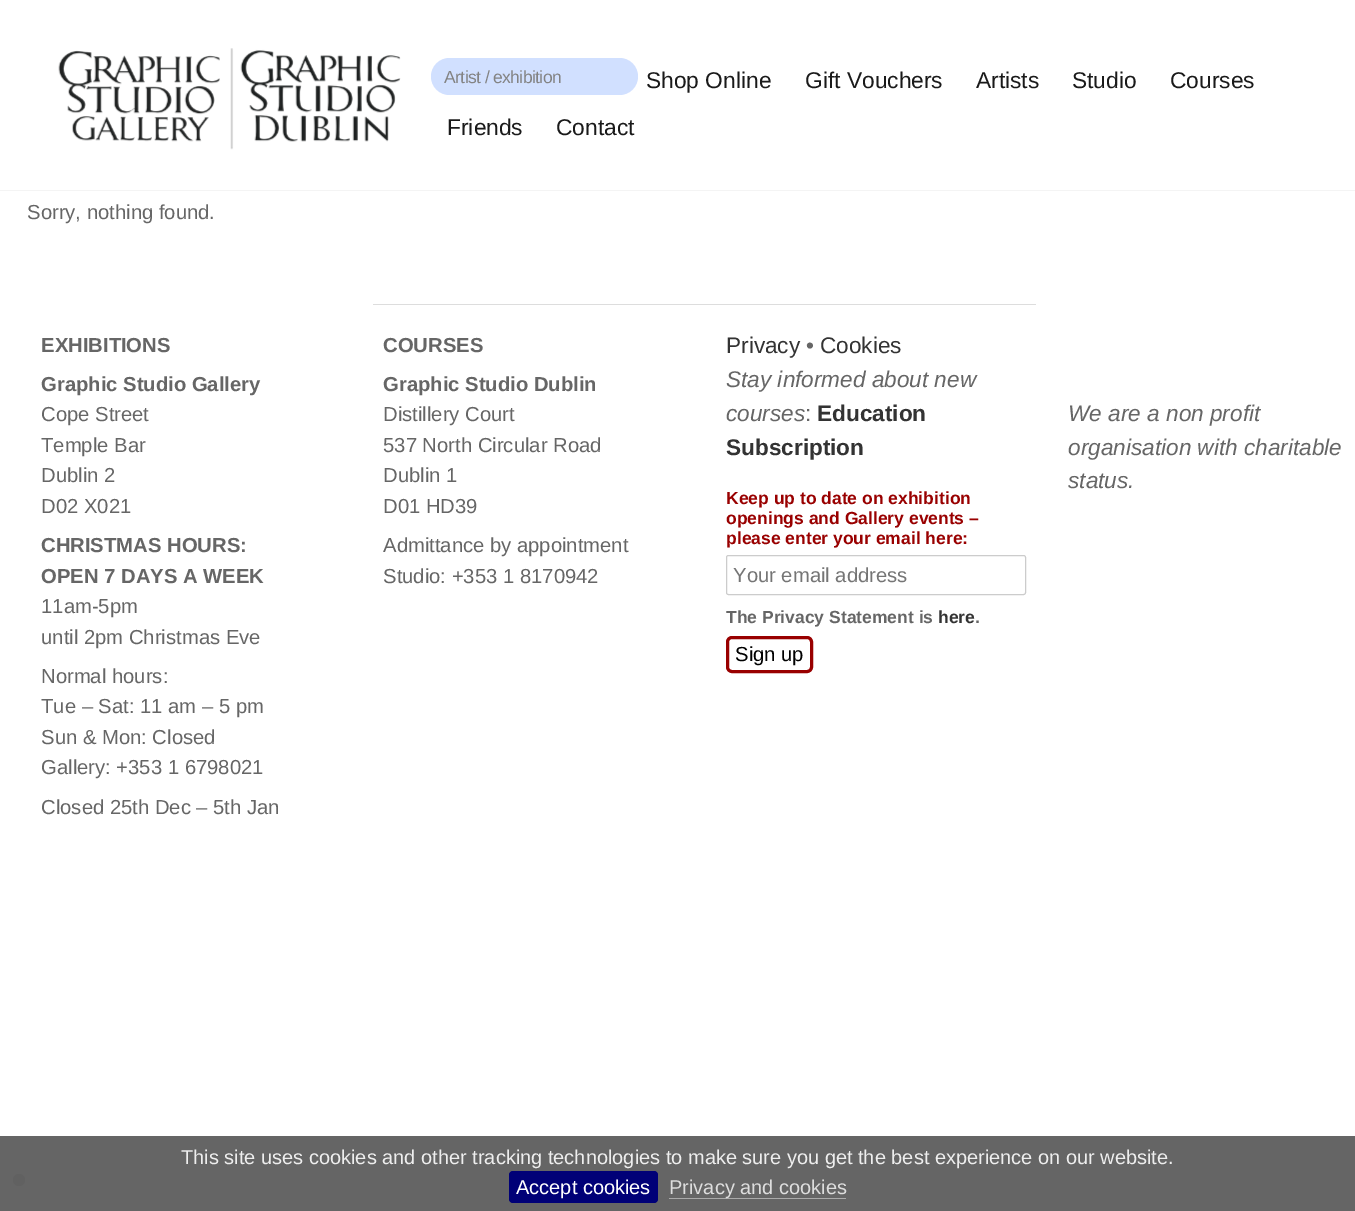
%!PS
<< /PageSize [1355 1211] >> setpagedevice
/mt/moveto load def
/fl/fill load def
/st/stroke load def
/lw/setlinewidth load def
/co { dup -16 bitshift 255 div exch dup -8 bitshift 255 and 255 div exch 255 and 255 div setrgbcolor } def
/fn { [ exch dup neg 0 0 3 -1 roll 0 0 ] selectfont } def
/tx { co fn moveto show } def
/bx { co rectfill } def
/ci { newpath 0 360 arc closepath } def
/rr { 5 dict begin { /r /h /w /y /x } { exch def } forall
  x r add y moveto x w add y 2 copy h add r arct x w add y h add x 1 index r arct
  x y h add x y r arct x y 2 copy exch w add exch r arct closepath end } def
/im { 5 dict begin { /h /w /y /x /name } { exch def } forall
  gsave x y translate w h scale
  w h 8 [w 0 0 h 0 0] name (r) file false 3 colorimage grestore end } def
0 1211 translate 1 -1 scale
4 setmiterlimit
0 0 1355 1211 16#FFFFFF bx
0 1136 1355 75 16#656565 bx
0 190 1355 1 16#F4F4F4 bx
(media/1.raw) 58 48 343 102 im
16#D1E0FF co
431 58 207 37 18.5 rr fl
373 304 663 1 16#DDDDDD bx
16#CCCCCC co
726.5 555.5 299 39 2 rr st
16#990000 co
3 lw
727.5 637.5 84 34 4.5 rr st
16#616161 co
19 1180 6 ci fl
16#000077 co
509 1171 149 32 4 rr fl
669 1198 177 1 16#AAAAAA bx
/LiberationSans-Regular 17.5 fn
16#838383 co
444 83 mt -.6 0 (Artist / exhibition) ashow
(Shop Online) 646 88 /LiberationSans-Regular 22.75 16#1A1A1A tx
(Gift Vouchers) 805 88 /LiberationSans-Regular 22.75 16#1A1A1A tx
(Artists) 976 88 /LiberationSans-Regular 22.75 16#1A1A1A tx
(Studio) 1072 88 /LiberationSans-Regular 22.75 16#1A1A1A tx
(Courses) 1170 88 /LiberationSans-Regular 22.75 16#1A1A1A tx
(Friends) 447 135 /LiberationSans-Regular 22.75 16#1A1A1A tx
(Contact) 556 135 /LiberationSans-Regular 22.75 16#1A1A1A tx
(Sorry, nothing found.) 27 219 /LiberationSans-Regular 20.25 16#666666 tx
(EXHIBITIONS) 41 352 /LiberationSans-Bold 20.25 16#666666 tx
(Graphic Studio Gallery) 41 391 /LiberationSans-Bold 20.25 16#666666 tx
(Cope Street) 41 421 /LiberationSans-Regular 20.25 16#666666 tx
(Temple Bar) 41 452 /LiberationSans-Regular 20.25 16#666666 tx
(Dublin 2) 41 482 /LiberationSans-Regular 20.25 16#666666 tx
(D02 X021) 41 513 /LiberationSans-Regular 20.25 16#666666 tx
(CHRISTMAS HOURS:) 41 552 /LiberationSans-Bold 20.25 16#666666 tx
(OPEN 7 DAYS A WEEK) 41 583 /LiberationSans-Bold 20.25 16#666666 tx
(11am-5pm) 41 613 /LiberationSans-Regular 20.25 16#666666 tx
(until 2pm Christmas Eve) 41 644 /LiberationSans-Regular 20.25 16#666666 tx
(Normal hours:) 41 683 /LiberationSans-Regular 20.25 16#666666 tx
(Tue – Sat: 11 am – 5 pm) 41 713 /LiberationSans-Regular 20.25 16#666666 tx
(Sun & Mon: Closed) 41 744 /LiberationSans-Regular 20.25 16#666666 tx
(Gallery: +353 1 6798021) 41 774 /LiberationSans-Regular 20.25 16#666666 tx
(Closed 25th Dec – 5th Jan) 41 814 /LiberationSans-Regular 20.25 16#666666 tx
(COURSES) 383 352 /LiberationSans-Bold 20.25 16#666666 tx
(Graphic Studio Dublin) 383 391 /LiberationSans-Bold 20.25 16#666666 tx
(Distillery Court) 383 421 /LiberationSans-Regular 20.25 16#666666 tx
(537 North Circular Road) 383 452 /LiberationSans-Regular 20.25 16#666666 tx
(Dublin 1) 383 482 /LiberationSans-Regular 20.25 16#666666 tx
(D01 HD39) 383 513 /LiberationSans-Regular 20.25 16#666666 tx
(Admittance by appointment) 383 552 /LiberationSans-Regular 20.25 16#666666 tx
(Studio: +353 1 8170942) 383 583 /LiberationSans-Regular 20.25 16#666666 tx
(Privacy) 726 353 /LiberationSans-Regular 22.6 16#333333 tx
(•) 806 353 /LiberationSans-Regular 22.6 16#666666 tx
(Cookies) 820 353 /LiberationSans-Regular 22.6 16#333333 tx
(Stay informed about new) 726 387 /LiberationSans-Italic 22.6 16#666666 tx
(courses) 726 421 /LiberationSans-Italic 22.6 16#666666 tx
(:) 805 421 /LiberationSans-Regular 22.6 16#666666 tx
(Education) 817 421 /LiberationSans-Bold 22.6 16#333333 tx
(Subscription) 726 455 /LiberationSans-Bold 22.6 16#333333 tx
(Keep up to date on exhibition) 726 504 /LiberationSans-Bold 17.5 16#990000 tx
(openings and Gallery events –) 726 524 /LiberationSans-Bold 17.5 16#990000 tx
(please enter your email here:) 726 544 /LiberationSans-Bold 17.5 16#990000 tx
(Your email address) 733 582 /LiberationSans-Regular 20.25 16#757575 tx
(The Privacy Statement is) 726 623 /LiberationSans-Bold 17.5 16#666666 tx
(here) 938 623 /LiberationSans-Bold 17.5 16#333333 tx
(.) 975 623 /LiberationSans-Bold 17.5 16#666666 tx
(Sign up) 735 661 /LiberationSans-Regular 20.25 16#000000 tx
(We are a non profit) 1068 421 /LiberationSans-Italic 22.6 16#666666 tx
(organisation with charitable) 1068 455 /LiberationSans-Italic 22.6 16#666666 tx
(status.) 1068 488 /LiberationSans-Italic 22.6 16#666666 tx
(This site uses cookies and other tracking technologies to make sure you get the best experience on our website.) 181 1164 /LiberationSans-Regular 20 16#EEEEEE tx
(Accept cookies) 516 1194 /LiberationSans-Regular 20 16#FFFFFF tx
(Privacy and cookies) 669 1194 /LiberationSans-Regular 20 16#DDDDDD tx
showpage
